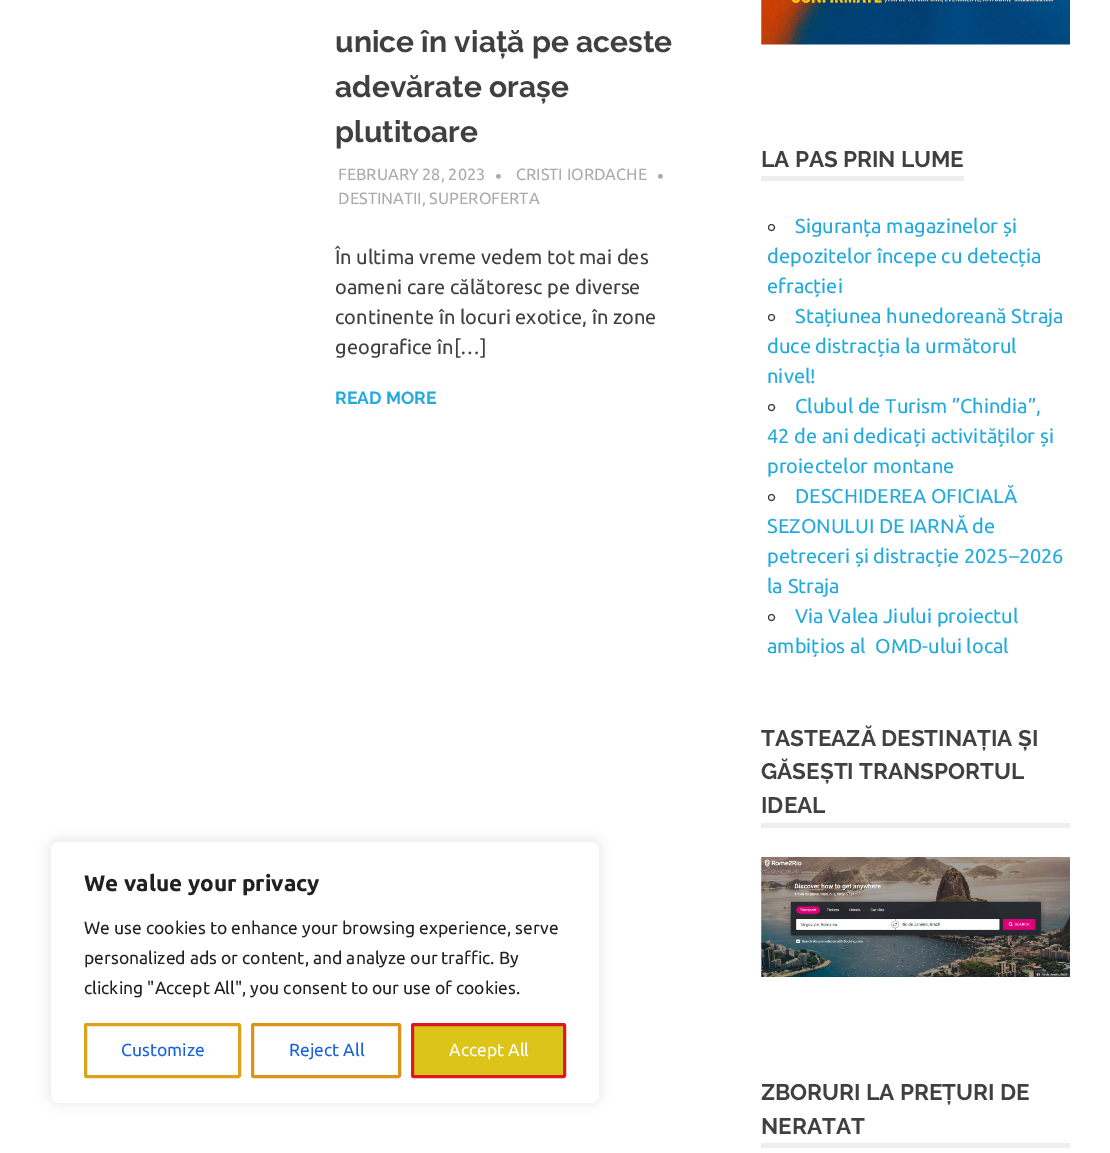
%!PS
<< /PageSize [1110 1153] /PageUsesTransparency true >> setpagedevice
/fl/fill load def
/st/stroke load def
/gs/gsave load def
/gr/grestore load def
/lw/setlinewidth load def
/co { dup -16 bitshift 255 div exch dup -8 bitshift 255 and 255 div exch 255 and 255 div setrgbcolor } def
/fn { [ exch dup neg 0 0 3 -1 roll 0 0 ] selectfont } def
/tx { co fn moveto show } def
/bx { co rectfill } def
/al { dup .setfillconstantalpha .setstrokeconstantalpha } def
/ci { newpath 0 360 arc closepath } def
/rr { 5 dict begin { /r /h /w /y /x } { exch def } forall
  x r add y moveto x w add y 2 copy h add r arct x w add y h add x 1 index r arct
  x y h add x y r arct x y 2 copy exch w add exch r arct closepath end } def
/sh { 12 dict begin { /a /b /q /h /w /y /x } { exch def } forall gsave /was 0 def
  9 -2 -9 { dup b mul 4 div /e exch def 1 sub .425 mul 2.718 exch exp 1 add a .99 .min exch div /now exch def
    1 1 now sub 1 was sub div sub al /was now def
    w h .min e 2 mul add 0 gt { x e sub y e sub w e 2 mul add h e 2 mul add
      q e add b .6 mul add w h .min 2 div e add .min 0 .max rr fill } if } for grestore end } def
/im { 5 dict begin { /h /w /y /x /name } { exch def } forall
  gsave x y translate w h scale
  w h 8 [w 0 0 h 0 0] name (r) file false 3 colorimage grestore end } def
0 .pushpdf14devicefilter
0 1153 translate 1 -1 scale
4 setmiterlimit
0 0 1110 1153 16#FFFFFF bx
16#ACABAB co
50 840 550 263 8 6 .3 sh
16#FFFFFF co
50.5 841.5 549 262 7.5 rr gs fl gr
16#F4F4F4 co
st
16#DCA318 co
3 lw
85.5 1024.5 154 52 1 rr st
16#DC9418 co
252.5 1024.5 147 52 1 rr st
16#DCC518 co
412.5 1024.5 152 52 1 rr gs fl gr
16#DC1821 co
st
(media/1.raw) 761 0 309 45 im
761 176 203 5 16#EEEEEE bx
16#404040 co
1 lw
771.5 227.5 3 ci st
771.5 317.5 3 ci st
771.5 407.5 3 ci st
771.5 497.5 3 ci st
771.5 617.5 3 ci st
761 823 309 5 16#EEEEEE bx
(media/2.raw) 761 857 309 120 im
761 1143 309 5 16#EEEEEE bx
(We value your privacy) 84 891 /Ubuntu-Bold 22.5 16#212121 tx
(We use cookies to enhance your browsing experience, serve) 84 934 /Ubuntu-Regular 17.5 16#212121 tx
(personalized ads or content, and analyze our traffic. By) 84 964 /Ubuntu-Regular 17.5 16#212121 tx
(clicking "Accept All", you consent to our use of cookies.) 84 994 /Ubuntu-Regular 17.5 16#212121 tx
(Customize) 121 1056 /Ubuntu-Regular 17.5 16#1863DC tx
(Reject All) 289 1056 /Ubuntu-Regular 17.5 16#1863DC tx
(Accept All) 449 1056 /Ubuntu-Regular 17.5 16#FFFFFF tx
(unice în viață pe aceste) 335 52 /Raleway-Bold 30 16#404040 tx
(adevărate orașe) 335 97 /Raleway-Bold 30 16#404040 tx
(plutitoare) 335 142 /Raleway-Bold 30 16#404040 tx
(FEBRUARY 28, 2023) 338 180 /Ubuntu-Regular 16.25 16#AAAAAA tx
(•) 495 183 /Ubuntu-Regular 19 16#AAAAAA tx
(CRISTI IORDACHE) 516 180 /Ubuntu-Regular 16.25 16#AAAAAA tx
(•) 657 183 /Ubuntu-Regular 19 16#AAAAAA tx
(DESTINATII, SUPEROFERTA) 338 204 /Ubuntu-Regular 16.25 16#AAAAAA tx
(În ultima vreme vedem tot mai des) 335 264 /Ubuntu-Regular 20 16#404040 tx
(oameni care călătoresc pe diverse) 335 294 /Ubuntu-Regular 20 16#404040 tx
(continente în locuri exotice, în zone) 335 324 /Ubuntu-Regular 20 16#404040 tx
(geografice în[…]) 335 354 /Ubuntu-Regular 20 16#404040 tx
(READ MORE) 335 404 /Raleway-Bold 17.5 16#22AADD tx
(LA PAS PRIN LUME) 761 167 /Raleway-Bold 22.5 16#404040 tx
(Siguranța magazinelor și) 795 233 /Ubuntu-Regular 20 16#22AADD tx
(depozitelor începe cu detecția) 767 263 /Ubuntu-Regular 20 16#22AADD tx
(efracției) 767 293 /Ubuntu-Regular 20 16#22AADD tx
(Stațiunea hunedoreană Straja) 795 323 /Ubuntu-Regular 20 16#22AADD tx
(duce distracția la următorul) 767 353 /Ubuntu-Regular 20 16#22AADD tx
(nivel!) 767 383 /Ubuntu-Regular 20 16#22AADD tx
(Clubul de Turism ”Chindia”,) 795 413 /Ubuntu-Regular 20 16#22AADD tx
(42 de ani dedicați activităților și) 767 443 /Ubuntu-Regular 20 16#22AADD tx
(proiectelor montane) 767 473 /Ubuntu-Regular 20 16#22AADD tx
(DESCHIDEREA OFICIALĂ) 795 503 /Ubuntu-Regular 20 16#22AADD tx
(SEZONULUI DE IARNĂ de) 767 533 /Ubuntu-Regular 20 16#22AADD tx
(petreceri și distracție 2025–2026) 767 563 /Ubuntu-Regular 20 16#22AADD tx
(la Straja) 767 593 /Ubuntu-Regular 20 16#22AADD tx
(Via Valea Jiului proiectul) 795 623 /Ubuntu-Regular 20 16#22AADD tx
(ambițios al  OMD-ului local) 767 653 /Ubuntu-Regular 20 16#22AADD tx
(TASTEAZĂ DESTINAȚIA ȘI) 761 746 /Raleway-Bold 22.5 16#404040 tx
(GĂSEȘTI TRANSPORTUL) 761 779 /Raleway-Bold 22.5 16#404040 tx
(IDEAL) 761 813 /Raleway-Bold 22.5 16#404040 tx
(ZBORURI LA PREȚURI DE) 761 1100 /Raleway-Bold 22.5 16#404040 tx
(NERATAT) 761 1134 /Raleway-Bold 22.5 16#404040 tx
.poppdf14devicefilter showpage
